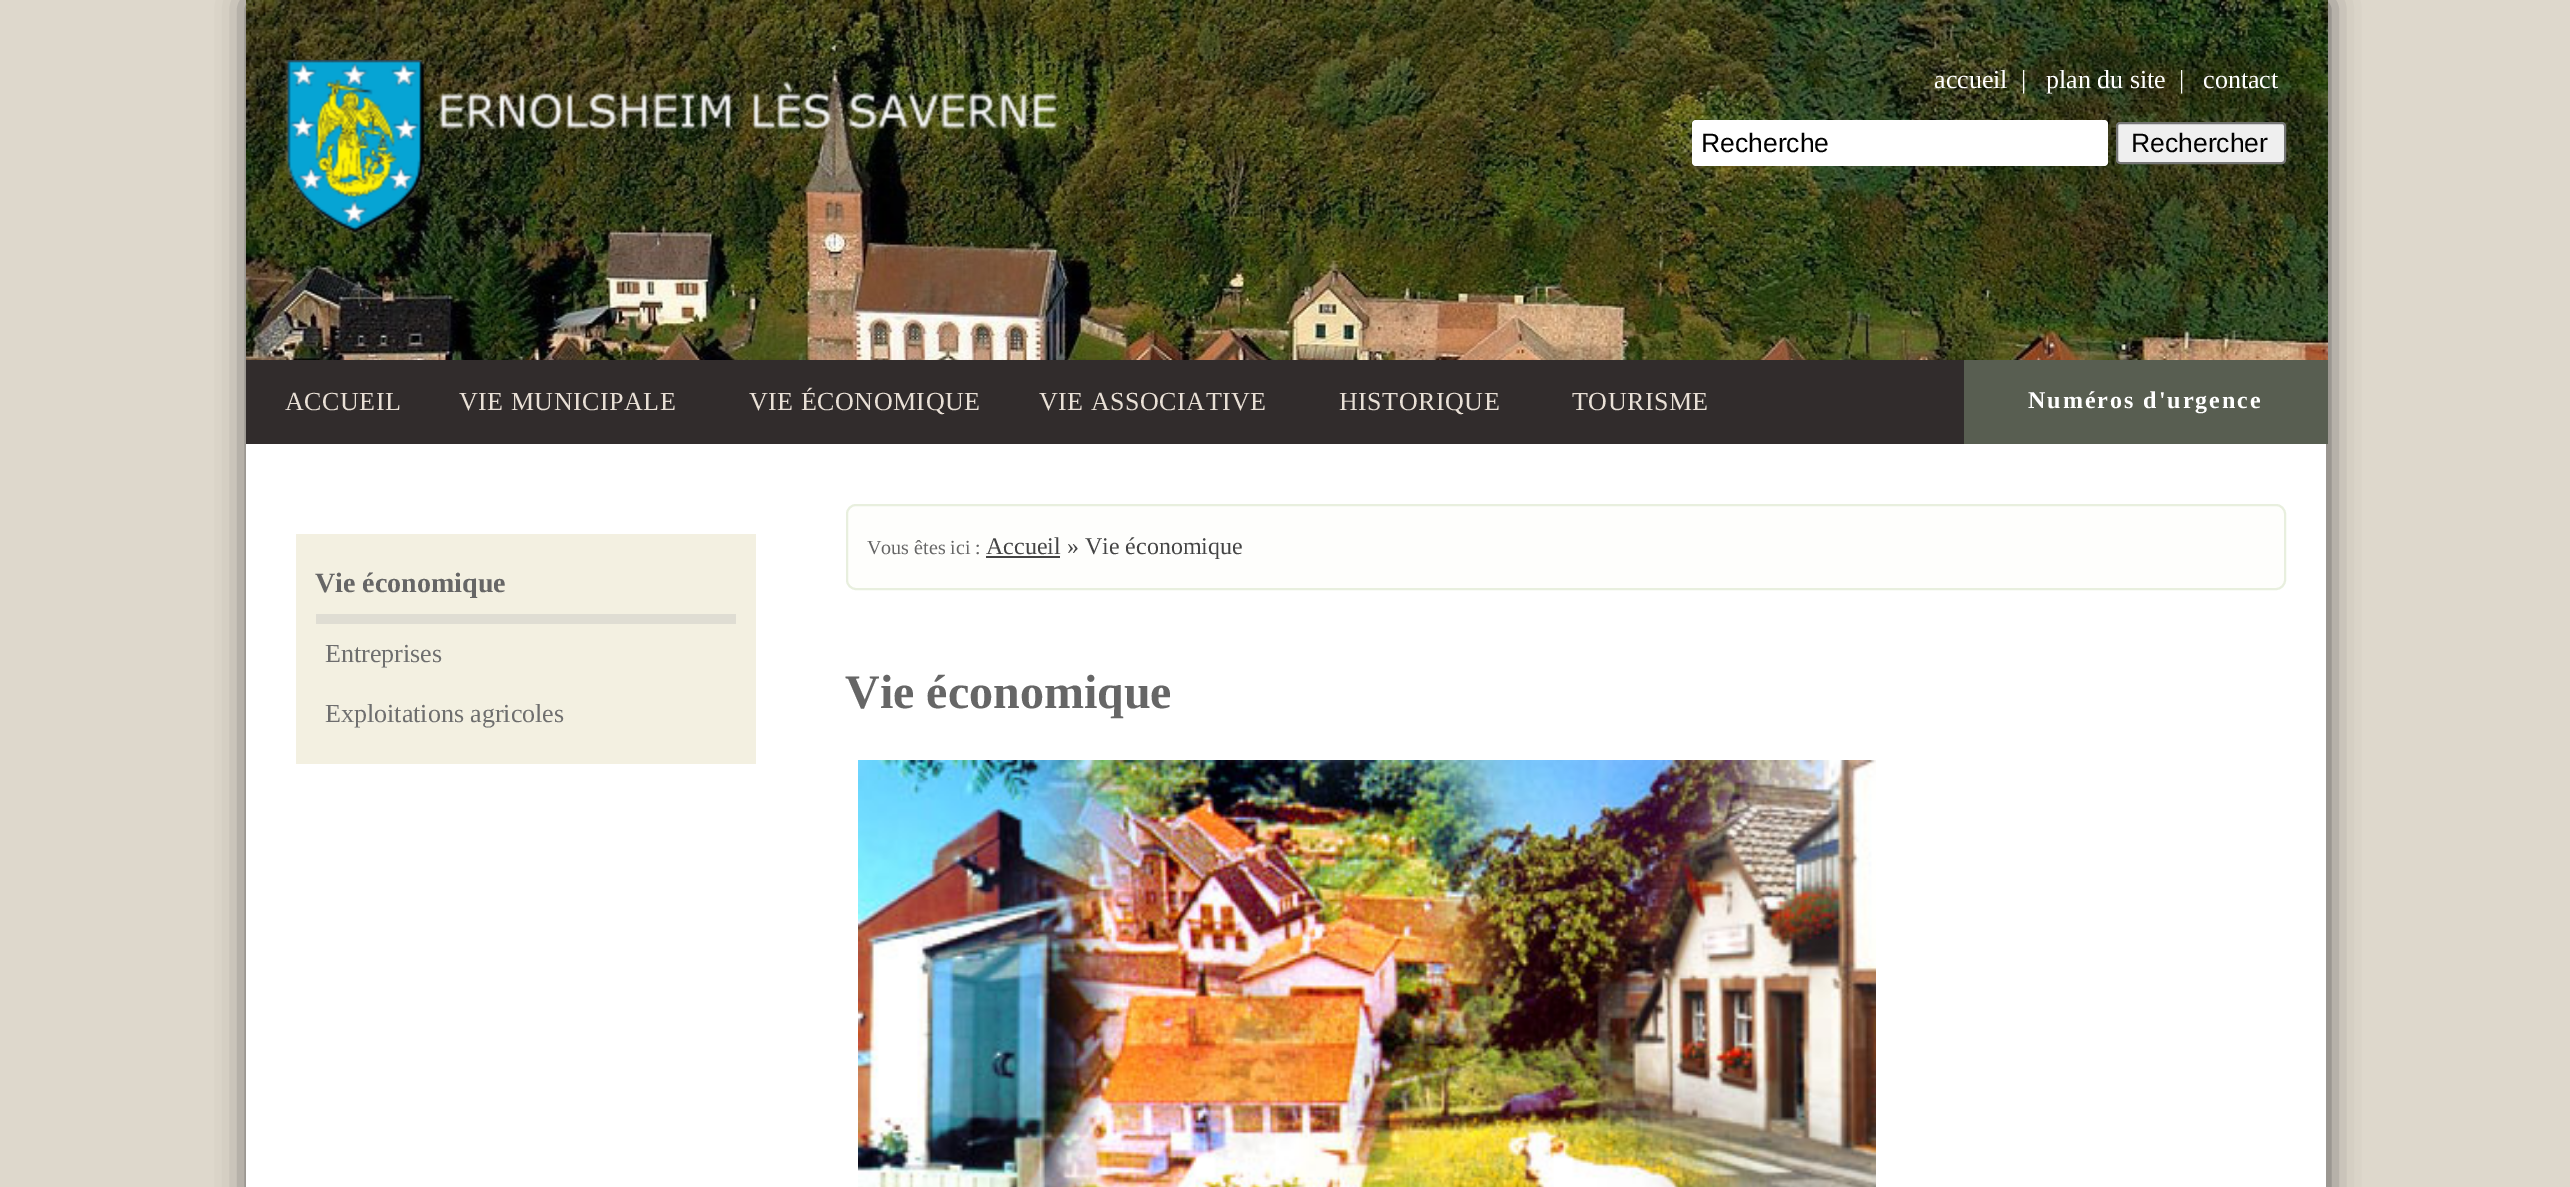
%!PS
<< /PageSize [2570 1187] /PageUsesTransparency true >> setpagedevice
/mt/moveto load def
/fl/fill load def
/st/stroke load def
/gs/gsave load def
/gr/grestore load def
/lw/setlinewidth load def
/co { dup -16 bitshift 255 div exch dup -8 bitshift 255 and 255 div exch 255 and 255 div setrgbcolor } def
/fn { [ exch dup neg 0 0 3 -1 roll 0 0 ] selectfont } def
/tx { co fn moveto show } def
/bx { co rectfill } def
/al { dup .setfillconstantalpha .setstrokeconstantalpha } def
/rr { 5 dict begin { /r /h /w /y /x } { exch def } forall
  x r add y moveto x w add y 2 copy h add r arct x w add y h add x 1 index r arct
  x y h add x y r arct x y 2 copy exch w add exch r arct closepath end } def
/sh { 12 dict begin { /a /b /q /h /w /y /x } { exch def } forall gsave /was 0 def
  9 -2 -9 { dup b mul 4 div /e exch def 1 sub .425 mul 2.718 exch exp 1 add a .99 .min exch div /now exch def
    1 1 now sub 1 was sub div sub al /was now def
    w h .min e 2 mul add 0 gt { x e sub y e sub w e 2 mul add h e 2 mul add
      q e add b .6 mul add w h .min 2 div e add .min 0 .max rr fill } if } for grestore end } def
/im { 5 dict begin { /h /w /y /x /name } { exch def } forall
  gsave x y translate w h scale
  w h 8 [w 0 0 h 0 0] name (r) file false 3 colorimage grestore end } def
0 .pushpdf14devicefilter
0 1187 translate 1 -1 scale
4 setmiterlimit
0 0 2570 1187 16#DED8CC bx
16#555555 co
248 2 2080 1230 0 15 1 sh
246 444 2080 743 16#FFFFFF bx
(media/1.raw) 246 0 2082 360 im
(media/2.raw) 285 60 772 175 im
1692 120 416 46 4 rr fl
16#EFEFEF co
2117 123 168 40 3 rr gs fl gr
16#767676 co
2 lw
st
246 360 1718 84 16#312C2C bx
1964 360 364 84 16#585E51 bx
296 534 460 230 16#F3F0E1 bx
316 614 420 10 16#DFDDD3 bx
16#FEFEFC co
847 505 1438 84 9 rr gs fl gr
16#E8EFDE co
st
986 556 74 2 16#444444 bx
(media/3.raw) 858 760 1018 427 im
(accueil) 1934 88 /LiberationSerif-Regular 26 16#FFFFFF tx
(|) 2021 88 /LiberationSerif-Regular 26 16#FFFFFF tx
(plan du site) 2046 88 /LiberationSerif-Regular 26 16#FFFFFF tx
(|) 2179 88 /LiberationSerif-Regular 26 16#FFFFFF tx
(contact) 2203 88 /LiberationSerif-Regular 26 16#FFFFFF tx
(Recherche) 1701 152 /LiberationSans-Regular 26.5 16#000000 tx
(Rechercher) 2131 152 /LiberationSans-Regular 26.5 16#000000 tx
/LiberationSerif-Regular 26 fn
16#E9E0D6 co
285 410 mt .5 0 (ACCUEIL) ashow
459 410 mt .5 0 (VIE MUNICIPALE) ashow
749 410 mt .5 0 (VIE ÉCONOMIQUE) ashow
1039 410 mt .5 0 (VIE ASSOCIATIVE) ashow
1339 410 mt .5 0 (HISTORIQUE) ashow
1572 410 mt .5 0 (TOURISME) ashow
/LiberationSerif-Bold 24 fn
16#FFFFFF co
2028 408 mt 2 0 (Numéros d'urgence) ashow
(Vie économique) 315 592 /LiberationSerif-Bold 28 16#666666 tx
(Entreprises) 325 662 /LiberationSerif-Regular 26 16#6E6E6E tx
(Exploitations agricoles) 325 722 /LiberationSerif-Regular 26 16#6E6E6E tx
(Vous êtes ici :) 867 554 /LiberationSerif-Regular 20 16#666666 tx
(Accueil » Vie économique) 986 554 /LiberationSerif-Regular 24 16#444444 tx
(Vie économique) 845 708 /LiberationSerif-Bold 48 16#666666 tx
.poppdf14devicefilter showpage
